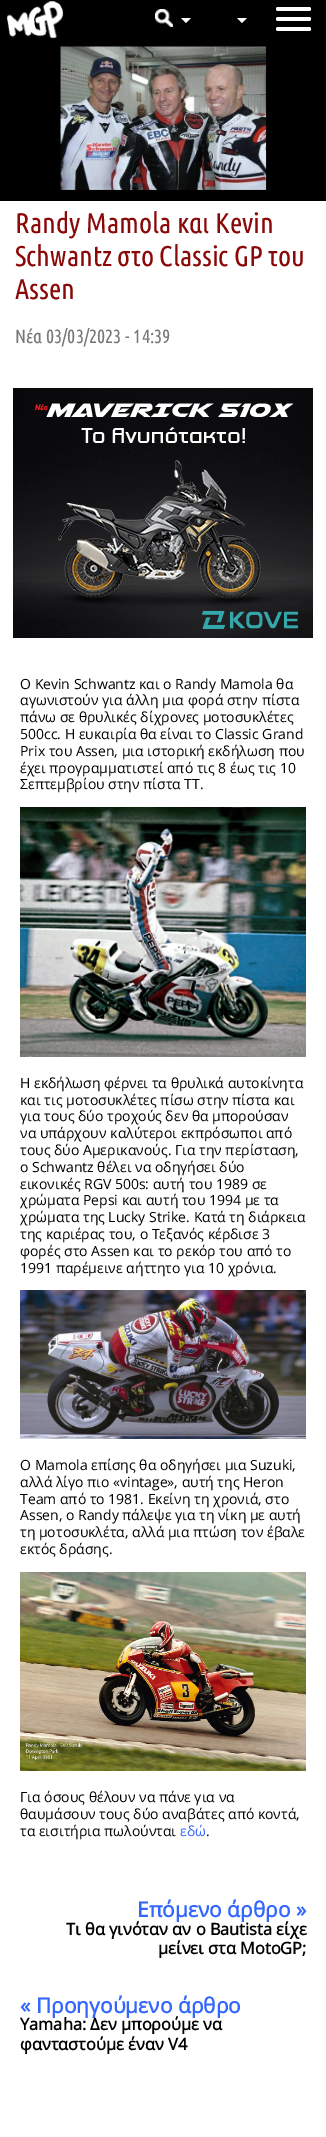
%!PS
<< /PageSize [326 2137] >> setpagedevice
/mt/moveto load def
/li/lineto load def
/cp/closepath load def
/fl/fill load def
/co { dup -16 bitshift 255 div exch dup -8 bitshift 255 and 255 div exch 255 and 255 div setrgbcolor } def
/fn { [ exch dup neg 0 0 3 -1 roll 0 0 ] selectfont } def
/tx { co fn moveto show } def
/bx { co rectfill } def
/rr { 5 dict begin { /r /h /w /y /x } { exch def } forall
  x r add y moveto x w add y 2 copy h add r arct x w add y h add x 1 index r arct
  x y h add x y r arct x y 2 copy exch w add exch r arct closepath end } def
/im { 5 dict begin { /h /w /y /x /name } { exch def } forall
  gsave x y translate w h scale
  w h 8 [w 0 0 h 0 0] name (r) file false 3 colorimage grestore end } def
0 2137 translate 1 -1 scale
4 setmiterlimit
0 0 326 2137 16#FFFFFF bx
0 0 326 40 16#000000 bx
(media/1.raw) 7 1 57 38 im
16#FFFFFF co
276 17 35 4 2 rr fl
276 7 35 4 2 rr fl
276 27 35 4 2 rr fl
(media/2.raw) 155 9 18 18 im
181 18 mt 191 18 li 186 23 li cp fl
237 18 mt 247 18 li 242 23 li cp fl
(media/3.raw) 0 40 326 161 im
(media/4.raw) 13 388 300 250 im
(media/5.raw) 20 807 286 250 im
(media/6.raw) 20 1290 286 149 im
(media/7.raw) 20 1572 286 199 im
(Randy Mamola και Kevin) 15 233 /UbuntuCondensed-Regular 28.5 16#8A0808 tx
(Schwantz στο Classic GP του) 15 266 /UbuntuCondensed-Regular 28.5 16#8A0808 tx
(Assen) 15 299 /UbuntuCondensed-Regular 28.5 16#8A0808 tx
(Νέα 03/03/2023 - 14:39) 15 343 /UbuntuCondensed-Regular 19 16#777777 tx
(Ο Kevin Schwantz και ο Randy Mamola θα) 20 689 /OpenSans-Regular 14 16#000000 tx
(αγωνιστούν για άλλη μια φορά στην πίστα) 20 705 /OpenSans-Regular 14 16#000000 tx
(πάνω σε θρυλικές δίχρονες μοτοσυκλέτες) 20 722 /OpenSans-Regular 14 16#000000 tx
(500cc. Η ευκαιρία θα είναι το Classic Grand) 20 739 /OpenSans-Regular 14 16#000000 tx
(Prix του Assen, μια ιστορική εκδήλωση που) 20 756 /OpenSans-Regular 14 16#000000 tx
(έχει προγραμματιστεί από τις 8 έως τις 10) 20 773 /OpenSans-Regular 14 16#000000 tx
(Σεπτεμβρίου στην πίστα TT.) 20 789 /OpenSans-Regular 14 16#000000 tx
(Η εκδήλωση φέρνει τα θρυλικά αυτοκίνητα) 20 1088 /OpenSans-Regular 14 16#000000 tx
(και τις μοτοσυκλέτες πίσω στην πίστα και) 20 1105 /OpenSans-Regular 14 16#000000 tx
(για τους δύο τροχούς δεν θα μπορούσαν) 20 1121 /OpenSans-Regular 14 16#000000 tx
(να υπάρχουν καλύτεροι εκπρόσωποι από) 20 1138 /OpenSans-Regular 14 16#000000 tx
(τους δύο Αμερικανούς. Για την περίσταση,) 20 1155 /OpenSans-Regular 14 16#000000 tx
(ο Schwantz θέλει να οδηγήσει δύο) 20 1172 /OpenSans-Regular 14 16#000000 tx
(εικονικές RGV 500s: αυτή του 1989 σε) 20 1189 /OpenSans-Regular 14 16#000000 tx
(χρώματα Pepsi και αυτή του 1994 με τα) 20 1205 /OpenSans-Regular 14 16#000000 tx
(χρώματα της Lucky Strike. Κατά τη διάρκεια) 20 1222 /OpenSans-Regular 14 16#000000 tx
(της καριέρας του, ο Tεξανός κέρδισε 3) 20 1239 /OpenSans-Regular 14 16#000000 tx
(φορές στο Assen και το ρεκόρ του από το) 20 1256 /OpenSans-Regular 14 16#000000 tx
(1991 παρέμεινε αήττητο για 10 χρόνια.) 20 1273 /OpenSans-Regular 14 16#000000 tx
(Ο Mamola επίσης θα οδηγήσει μια Suzuki,) 20 1470 /OpenSans-Regular 14 16#000000 tx
(αλλά λίγο πιο «vintage», αυτή της Heron) 20 1487 /OpenSans-Regular 14 16#000000 tx
(Team από το 1981. Εκείνη τη χρονιά, στο) 20 1504 /OpenSans-Regular 14 16#000000 tx
(Assen, ο Randy πάλεψε για τη νίκη με αυτή) 20 1520 /OpenSans-Regular 14 16#000000 tx
(τη μοτοσυκλέτα, αλλά μια πτώση τον έβαλε) 20 1537 /OpenSans-Regular 14 16#000000 tx
(εκτός δράσης.) 20 1554 /OpenSans-Regular 14 16#000000 tx
(Για όσους θέλουν να πάνε για να) 20 1802 /OpenSans-Regular 14 16#000000 tx
(θαυμάσουν τους δύο αναβάτες από κοντά,) 20 1819 /OpenSans-Regular 14 16#000000 tx
(τα εισιτήρια πωλούνται) 20 1836 /OpenSans-Regular 14 16#000000 tx
(εδώ) 180 1836 /OpenSans-Regular 14 16#3366FF tx
(.) 206 1836 /OpenSans-Regular 14 16#000000 tx
(Επόμενο άρθρο ») 137 1917 /OpenSans-Bold 21 16#3366FF tx
(Τι θα γινόταν αν ο Bautista είχε) 66 1935 /OpenSans-Bold 16.4 16#000000 tx
(μείνει στα MotoGP;) 158 1954 /OpenSans-Bold 16.4 16#000000 tx
(« Προηγούμενο άρθρο) 20 2013 /OpenSans-Bold 21 16#3366FF tx
(Yamaha: Δεν μπορούμε να) 20 2030 /OpenSans-Bold 16.4 16#000000 tx
(φανταστούμε έναν V4) 20 2050 /OpenSans-Bold 16.4 16#000000 tx
showpage
